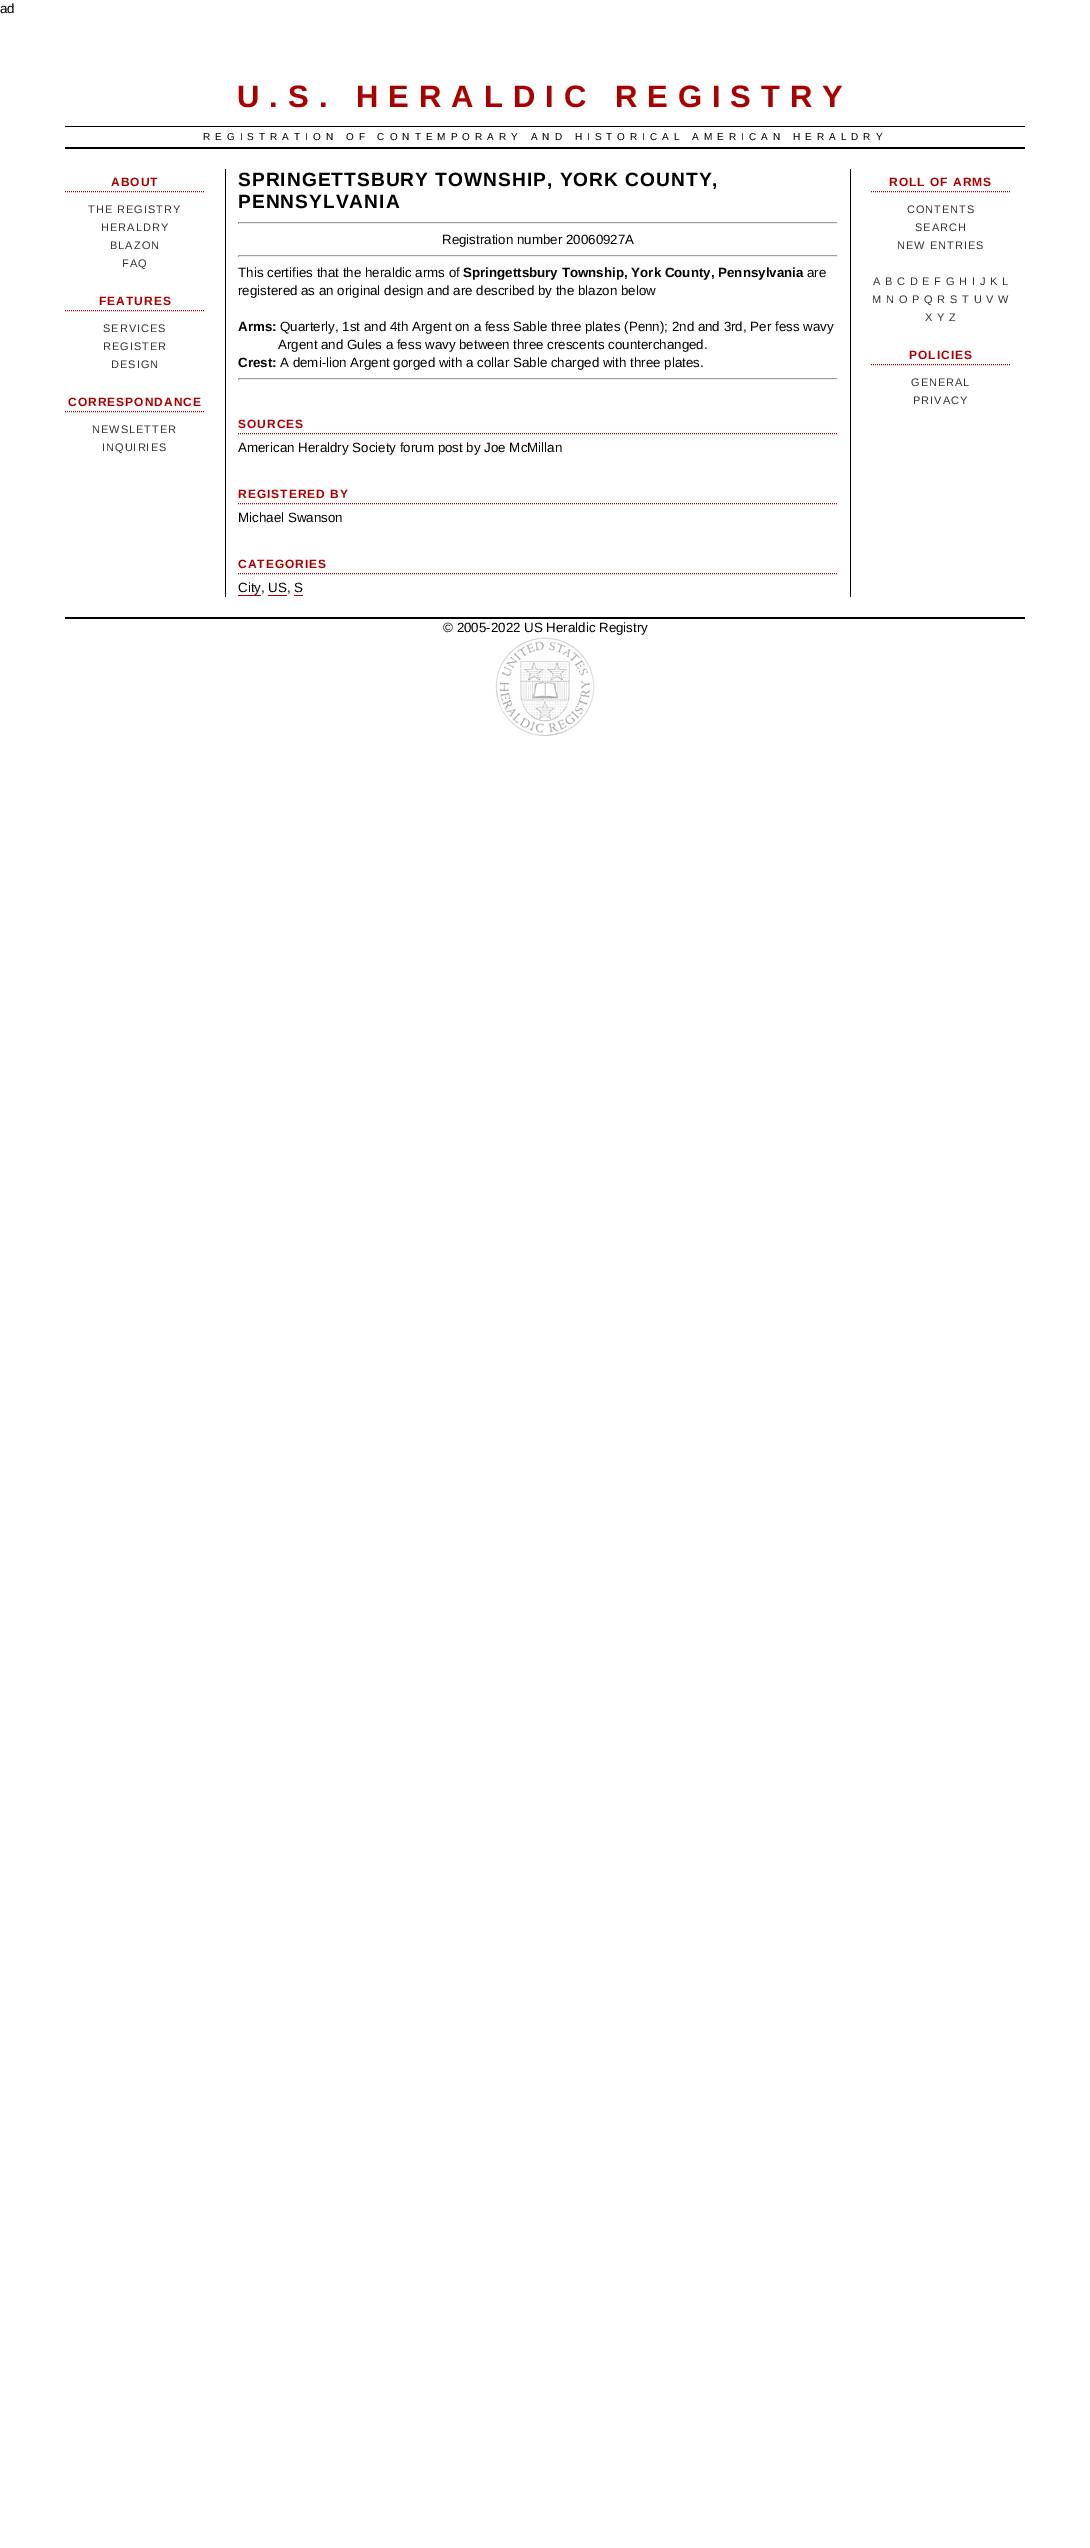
%!PS
<< /PageSize [1090 2548] >> setpagedevice
/mt/moveto load def
/li/lineto load def
/st/stroke load def
/co { dup -16 bitshift 255 div exch dup -8 bitshift 255 and 255 div exch 255 and 255 div setrgbcolor } def
/fn { [ exch dup neg 0 0 3 -1 roll 0 0 ] selectfont } def
/tx { co fn moveto show } def
/bx { co rectfill } def
/im { 5 dict begin { /h /w /y /x /name } { exch def } forall
  gsave x y translate w h scale
  w h 8 [w 0 0 h 0 0] name (r) file false 3 colorimage grestore end } def
0 2548 translate 1 -1 scale
4 setmiterlimit
0 0 1090 2548 16#FFFFFF bx
65 147 960 2 16#000000 bx
65 126 960 1 16#000000 bx
16#AA0000 co
[1 1] 0 setdash
65 191.5 mt 205 191.5 li st
65 310.5 mt 205 310.5 li st
65 411.5 mt 205 411.5 li st
850 169 1 428 16#000000 bx
225 169 1 428 16#000000 bx
238 222 600 1 16#9F9F9F bx
837 222 1 2 16#EEEEEE bx
238 223 600 1 16#EEEEEE bx
238 222 1 2 16#9F9F9F bx
238 255 600 1 16#9F9F9F bx
837 255 1 2 16#EEEEEE bx
238 256 600 1 16#EEEEEE bx
238 255 1 2 16#9F9F9F bx
238 378 600 1 16#9F9F9F bx
837 378 1 2 16#EEEEEE bx
238 379 600 1 16#EEEEEE bx
238 378 1 2 16#9F9F9F bx
16#AA0000 co
238 433.5 mt 838 433.5 li st
238 503.5 mt 838 503.5 li st
238 573.5 mt 838 573.5 li st
238 595 23 1 16#AA0000 bx
268 595 19 1 16#AA0000 bx
294 595 9 1 16#AA0000 bx
871 191.5 mt 1011 191.5 li st
871 364.5 mt 1011 364.5 li st
65 617 960 2 16#000000 bx
(media/1.raw) 495 637 100 99 im
(ad) 0 13 /LiberationSans-Regular 13.35 16#000000 tx
/LiberationSans-Bold 31 fn
16#AA0000 co
237 107 mt 10 0 (U.S. HERALDIC REGISTRY) ashow
/LiberationSans-Regular 10 fn
16#000000 co
203 140 mt 5 0 (REGISTRATION OF CONTEMPORARY AND HISTORICAL AMERICAN HERALDRY) ashow
/LiberationSans-Bold 12 fn
16#AA0000 co
111 186 mt 1 0 (ABOUT) ashow
/LiberationSans-Regular 11 fn
16#333333 co
88 213 mt 1 0 (THE REGISTRY) ashow
101 231 mt 1 0 (HERALDRY) ashow
110 249 mt 1 0 (BLAZON) ashow
122 267 mt 1 0 (FAQ) ashow
/LiberationSans-Bold 12 fn
16#AA0000 co
99 305 mt 1 0 (FEATURES) ashow
/LiberationSans-Regular 11 fn
16#333333 co
103 332 mt 1 0 (SERVICES) ashow
103 350 mt 1 0 (REGISTER) ashow
111 368 mt 1 0 (DESIGN) ashow
/LiberationSans-Bold 12 fn
16#AA0000 co
68 406 mt 1 0 (CORRESPONDANCE) ashow
/LiberationSans-Regular 11 fn
16#333333 co
92 433 mt 1 0 (NEWSLETTER) ashow
102 451 mt 1 0 (INQUIRIES) ashow
/LiberationSans-Bold 19.2 fn
16#000000 co
238 186 mt 1 0 (SPRINGETTSBURY TOWNSHIP, YORK COUNTY,) ashow
238 208 mt 1 0 (PENNSYLVANIA) ashow
(Registration number 20060927A) 442 244 /LiberationSans-Regular 13.35 16#000000 tx
(This certifies that the heraldic arms of) 238 277 /LiberationSans-Regular 13.35 16#000000 tx
(Springettsbury Township, York County, Pennsylvania) 463 277 /LiberationSans-Bold 13.35 16#000000 tx
(are) 807 277 /LiberationSans-Regular 13.35 16#000000 tx
(registered as an original design and are described by the blazon below) 238 295 /LiberationSans-Regular 13.35 16#000000 tx
(Arms:) 238 331 /LiberationSans-Bold 13.35 16#000000 tx
(Quarterly, 1st and 4th Argent on a fess Sable three plates \(Penn\); 2nd and 3rd, Per fess wavy) 280 331 /LiberationSans-Regular 13.35 16#000000 tx
(Argent and Gules a fess wavy between three crescents counterchanged.) 278 349 /LiberationSans-Regular 13.35 16#000000 tx
(Crest:) 238 367 /LiberationSans-Bold 13.35 16#000000 tx
(A demi-lion Argent gorged with a collar Sable charged with three plates.) 280 367 /LiberationSans-Regular 13.35 16#000000 tx
/LiberationSans-Bold 12 fn
16#AA0000 co
238 428 mt 1 0 (SOURCES) ashow
(American Heraldry Society forum post by Joe McMillan) 238 452 /LiberationSans-Regular 13.35 16#000000 tx
/LiberationSans-Bold 12 fn
16#AA0000 co
238 498 mt 1 0 (REGISTERED BY) ashow
(Michael Swanson) 238 522 /LiberationSans-Regular 13.35 16#000000 tx
/LiberationSans-Bold 12 fn
16#AA0000 co
238 568 mt 1 0 (CATEGORIES) ashow
(City, US, S) 238 592 /LiberationSans-Regular 13.35 16#000000 tx
/LiberationSans-Bold 12 fn
16#AA0000 co
889 186 mt 1 0 (ROLL OF ARMS) ashow
/LiberationSans-Regular 11 fn
16#333333 co
907 213 mt 1 0 (CONTENTS) ashow
915 231 mt 1 0 (SEARCH) ashow
897 249 mt 1 0 (NEW ENTRIES) ashow
873 285 mt 1 0 (A) ashow
885 285 mt 1 0 (B) ashow
897 285 mt 1 0 (C) ashow
910 285 mt 1 0 (D) ashow
922 285 mt 1 0 (E) ashow
934 285 mt 1 0 (F) ashow
946 285 mt 1 0 (G) ashow
959 285 mt 1 0 (H) ashow
972 285 mt 1 0 (I) ashow
980 285 mt 1 0 (J) ashow
990 285 mt 1 0 (K) ashow
1002 285 mt 1 0 (L) ashow
872 303 mt 1 0 (M) ashow
886 303 mt 1 0 (N) ashow
899 303 mt 1 0 (O) ashow
912 303 mt 1 0 (P) ashow
924 303 mt 1 0 (Q) ashow
937 303 mt 1 0 (R) ashow
950 303 mt 1 0 (S) ashow
962 303 mt 1 0 (T) ashow
974 303 mt 1 0 (U) ashow
986 303 mt 1 0 (V) ashow
998 303 mt 1 0 (W) ashow
925 321 mt 1 0 (X) ashow
937 321 mt 1 0 (Y) ashow
949 321 mt 1 0 (Z) ashow
/LiberationSans-Bold 12 fn
16#AA0000 co
909 359 mt 1 0 (POLICIES) ashow
/LiberationSans-Regular 11 fn
16#333333 co
911 386 mt 1 0 (GENERAL) ashow
913 404 mt 1 0 (PRIVACY) ashow
(© 2005-2022 US Heraldic Registry) 443 632 /LiberationSans-Regular 13.35 16#000000 tx
showpage
